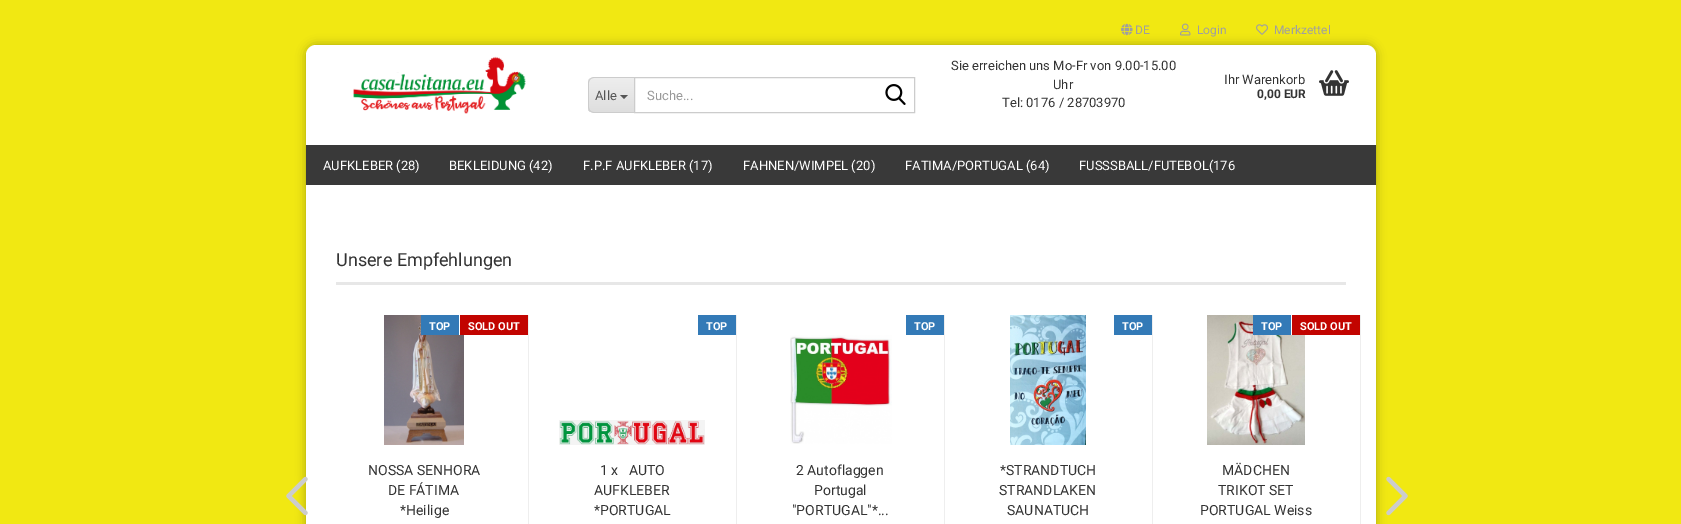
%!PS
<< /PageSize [1681 524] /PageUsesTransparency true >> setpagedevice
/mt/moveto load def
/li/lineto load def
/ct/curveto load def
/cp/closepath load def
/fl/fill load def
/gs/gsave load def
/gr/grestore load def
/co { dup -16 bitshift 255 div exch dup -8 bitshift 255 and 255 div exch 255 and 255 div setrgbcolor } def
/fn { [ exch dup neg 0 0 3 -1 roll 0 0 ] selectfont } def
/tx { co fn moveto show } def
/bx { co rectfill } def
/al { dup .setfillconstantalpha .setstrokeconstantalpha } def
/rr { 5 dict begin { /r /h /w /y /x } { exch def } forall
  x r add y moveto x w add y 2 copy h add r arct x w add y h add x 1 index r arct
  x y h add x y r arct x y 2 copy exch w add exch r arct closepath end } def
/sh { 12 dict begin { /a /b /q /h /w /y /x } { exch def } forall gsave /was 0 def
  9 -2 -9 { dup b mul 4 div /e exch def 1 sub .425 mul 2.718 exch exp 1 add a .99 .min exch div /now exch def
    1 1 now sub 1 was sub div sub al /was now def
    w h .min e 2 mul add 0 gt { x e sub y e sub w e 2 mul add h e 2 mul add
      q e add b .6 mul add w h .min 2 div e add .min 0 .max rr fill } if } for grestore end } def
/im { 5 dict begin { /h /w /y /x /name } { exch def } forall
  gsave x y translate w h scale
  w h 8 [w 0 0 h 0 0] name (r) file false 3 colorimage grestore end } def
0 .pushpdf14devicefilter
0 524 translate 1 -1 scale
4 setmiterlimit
0 0 1681 524 16#F1E812 bx
16#000000 co
306 45 1070 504 10 5 .3 sh
16#FFFFFF co
306 45 1070 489 10 rr fl
(media/1.raw) 1121 23 12 13 im
(media/2.raw) 1180 23 11 13 im
(media/3.raw) 1256 24 12 11 im
(media/4.raw) 353 56 173 58 im
gs
594 77 mt 634 77 li 634 113 li 594 113 li 590.5 113 588 110.5 588 107 ct 588 83 li 588 79.5 590.5 77 594 77 ct cp clip newpath
gs 588 78 mt 634 78 li 634 112 li 588 112 li cp clip newpath
<< /ShadingType 2 /ColorSpace /DeviceRGB /Coords [612 78 612 112] /Extend [true true] /Function << /FunctionType 2 /Domain [0 1] /C0 [.933 .933 .933] /C1 [.871 .871 .871] /N 1 >> >> shfill gr
gr
16#CCCCCC co
594 77 mt 634 77 li 634 113 li 594 113 li 591 113 588 110 588 107 ct 588 83 li 588 80 591 77 594 77 ct cp 594 78 mt 634 78 li 634 112 li 594 112 li 591 112 589 110 589 107 ct 589 83 li 589 80 591 78 594 78 ct cp eofill
16#555555 co
620 95 mt 628 95 li 624 99 li cp fl
16#CCCCCC co
634.5 77.5 280 35 rectstroke
(media/5.raw) 885 84 21 21 im
(media/6.raw) 1319 70 30 26 im
306 145 1070 40 16#393939 bx
336 282 1010 3 16#E7E7E7 bx
(media/7.raw) 286 476 22 40 im
528 315 1 209 16#EEEEEE bx
(media/8.raw) 384 315 80 130 im
421 315 38 20 16#337AB7 bx
459 315 1 20 16#FFFFFF bx
460 315 68 20 16#C20400 bx
736 315 1 209 16#EEEEEE bx
698 315 38 20 16#337AB7 bx
(media/9.raw) 559 420 146 25 im
944 315 1 209 16#EEEEEE bx
906 315 38 20 16#337AB7 bx
(media/10.raw) 790 335 102 109 im
1152 315 1 209 16#EEEEEE bx
(media/11.raw) 1010 315 76 130 im
1114 315 38 20 16#337AB7 bx
1360 315 1 209 16#EEEEEE bx
(media/12.raw) 1207 315 98 130 im
1253 315 38 20 16#337AB7 bx
1291 315 1 20 16#FFFFFF bx
1292 315 68 20 16#C20400 bx
(media/13.raw) 1386 476 22 40 im
(DE) 1135 34 /Roboto-Regular 12 16#9F9F9F tx
(Login) 1197 34 /Roboto-Regular 12 16#9F9F9F tx
(Merkzettel) 1274 34 /Roboto-Regular 12 16#9F9F9F tx
(Alle) 595 100 /Roboto-Regular 13 16#555555 tx
(Suche...) 647 100 /Roboto-Regular 13 16#999999 tx
(Sie erreichen uns Mo-Fr von 9.00-15.00) 951 70 /Roboto-Regular 13 16#333333 tx
(Uhr) 1053 89 /Roboto-Regular 13 16#333333 tx
(Tel: 0176 / 28703970) 1002 107 /Roboto-Regular 13 16#333333 tx
(Ihr Warenkorb) 1224 84 /Roboto-Regular 13 16#333333 tx
(0,00 EUR) 1257 98 /Roboto-Bold 12 16#333333 tx
(AUFKLEBER \(28\)) 323 170 /Roboto-Regular 13 16#FFFFFF tx
(BEKLEIDUNG \(42\)) 449 170 /Roboto-Regular 13 16#FFFFFF tx
(F.P.F AUFKLEBER \(17\)) 583 170 /Roboto-Regular 13 16#FFFFFF tx
(FAHNEN/WIMPEL \(20\)) 743 170 /Roboto-Regular 13 16#FFFFFF tx
(FATIMA/PORTUGAL \(64\)) 905 170 /Roboto-Regular 13 16#FFFFFF tx
(FUSSSBALL/FUTEBOL\(176) 1079 170 /Roboto-Regular 13 16#FFFFFF tx
(Unsere Empfehlungen) 336 266 /Roboto-Regular 18 16#333333 tx
(TOP) 429 330 /Roboto-Bold 11 16#FFFFFF tx
(SOLD OUT) 468 330 /Roboto-Bold 11 16#FFFFFF tx
(NOSSA SENHORA) 368 475 /Roboto-Regular 14 16#333333 tx
(DE FÁTIMA) 388 495 /Roboto-Regular 14 16#333333 tx
(*Heilige) 400 515 /Roboto-Regular 14 16#333333 tx
(TOP) 706 330 /Roboto-Bold 11 16#FFFFFF tx
(1 x   AUTO) 600 475 /Roboto-Regular 14 16#333333 tx
(AUFKLEBER) 594 495 /Roboto-Regular 14 16#333333 tx
(*PORTUGAL) 594 515 /Roboto-Regular 14 16#333333 tx
(TOP) 914 330 /Roboto-Bold 11 16#FFFFFF tx
(2 Autoflaggen) 796 475 /Roboto-Regular 14 16#333333 tx
(Portugal) 814 495 /Roboto-Regular 14 16#333333 tx
("PORTUGAL"*...) 792 515 /Roboto-Regular 14 16#333333 tx
(TOP) 1122 330 /Roboto-Bold 11 16#FFFFFF tx
(*STRANDTUCH) 1000 475 /Roboto-Regular 14 16#333333 tx
(STRANDLAKEN) 999 495 /Roboto-Regular 14 16#333333 tx
(SAUNATUCH) 1007 515 /Roboto-Regular 14 16#333333 tx
(TOP) 1261 330 /Roboto-Bold 11 16#FFFFFF tx
(SOLD OUT) 1300 330 /Roboto-Bold 11 16#FFFFFF tx
(MÄDCHEN) 1222 475 /Roboto-Regular 14 16#333333 tx
(TRIKOT SET) 1218 495 /Roboto-Regular 14 16#333333 tx
(PORTUGAL Weiss) 1200 515 /Roboto-Regular 14 16#333333 tx
.poppdf14devicefilter showpage
